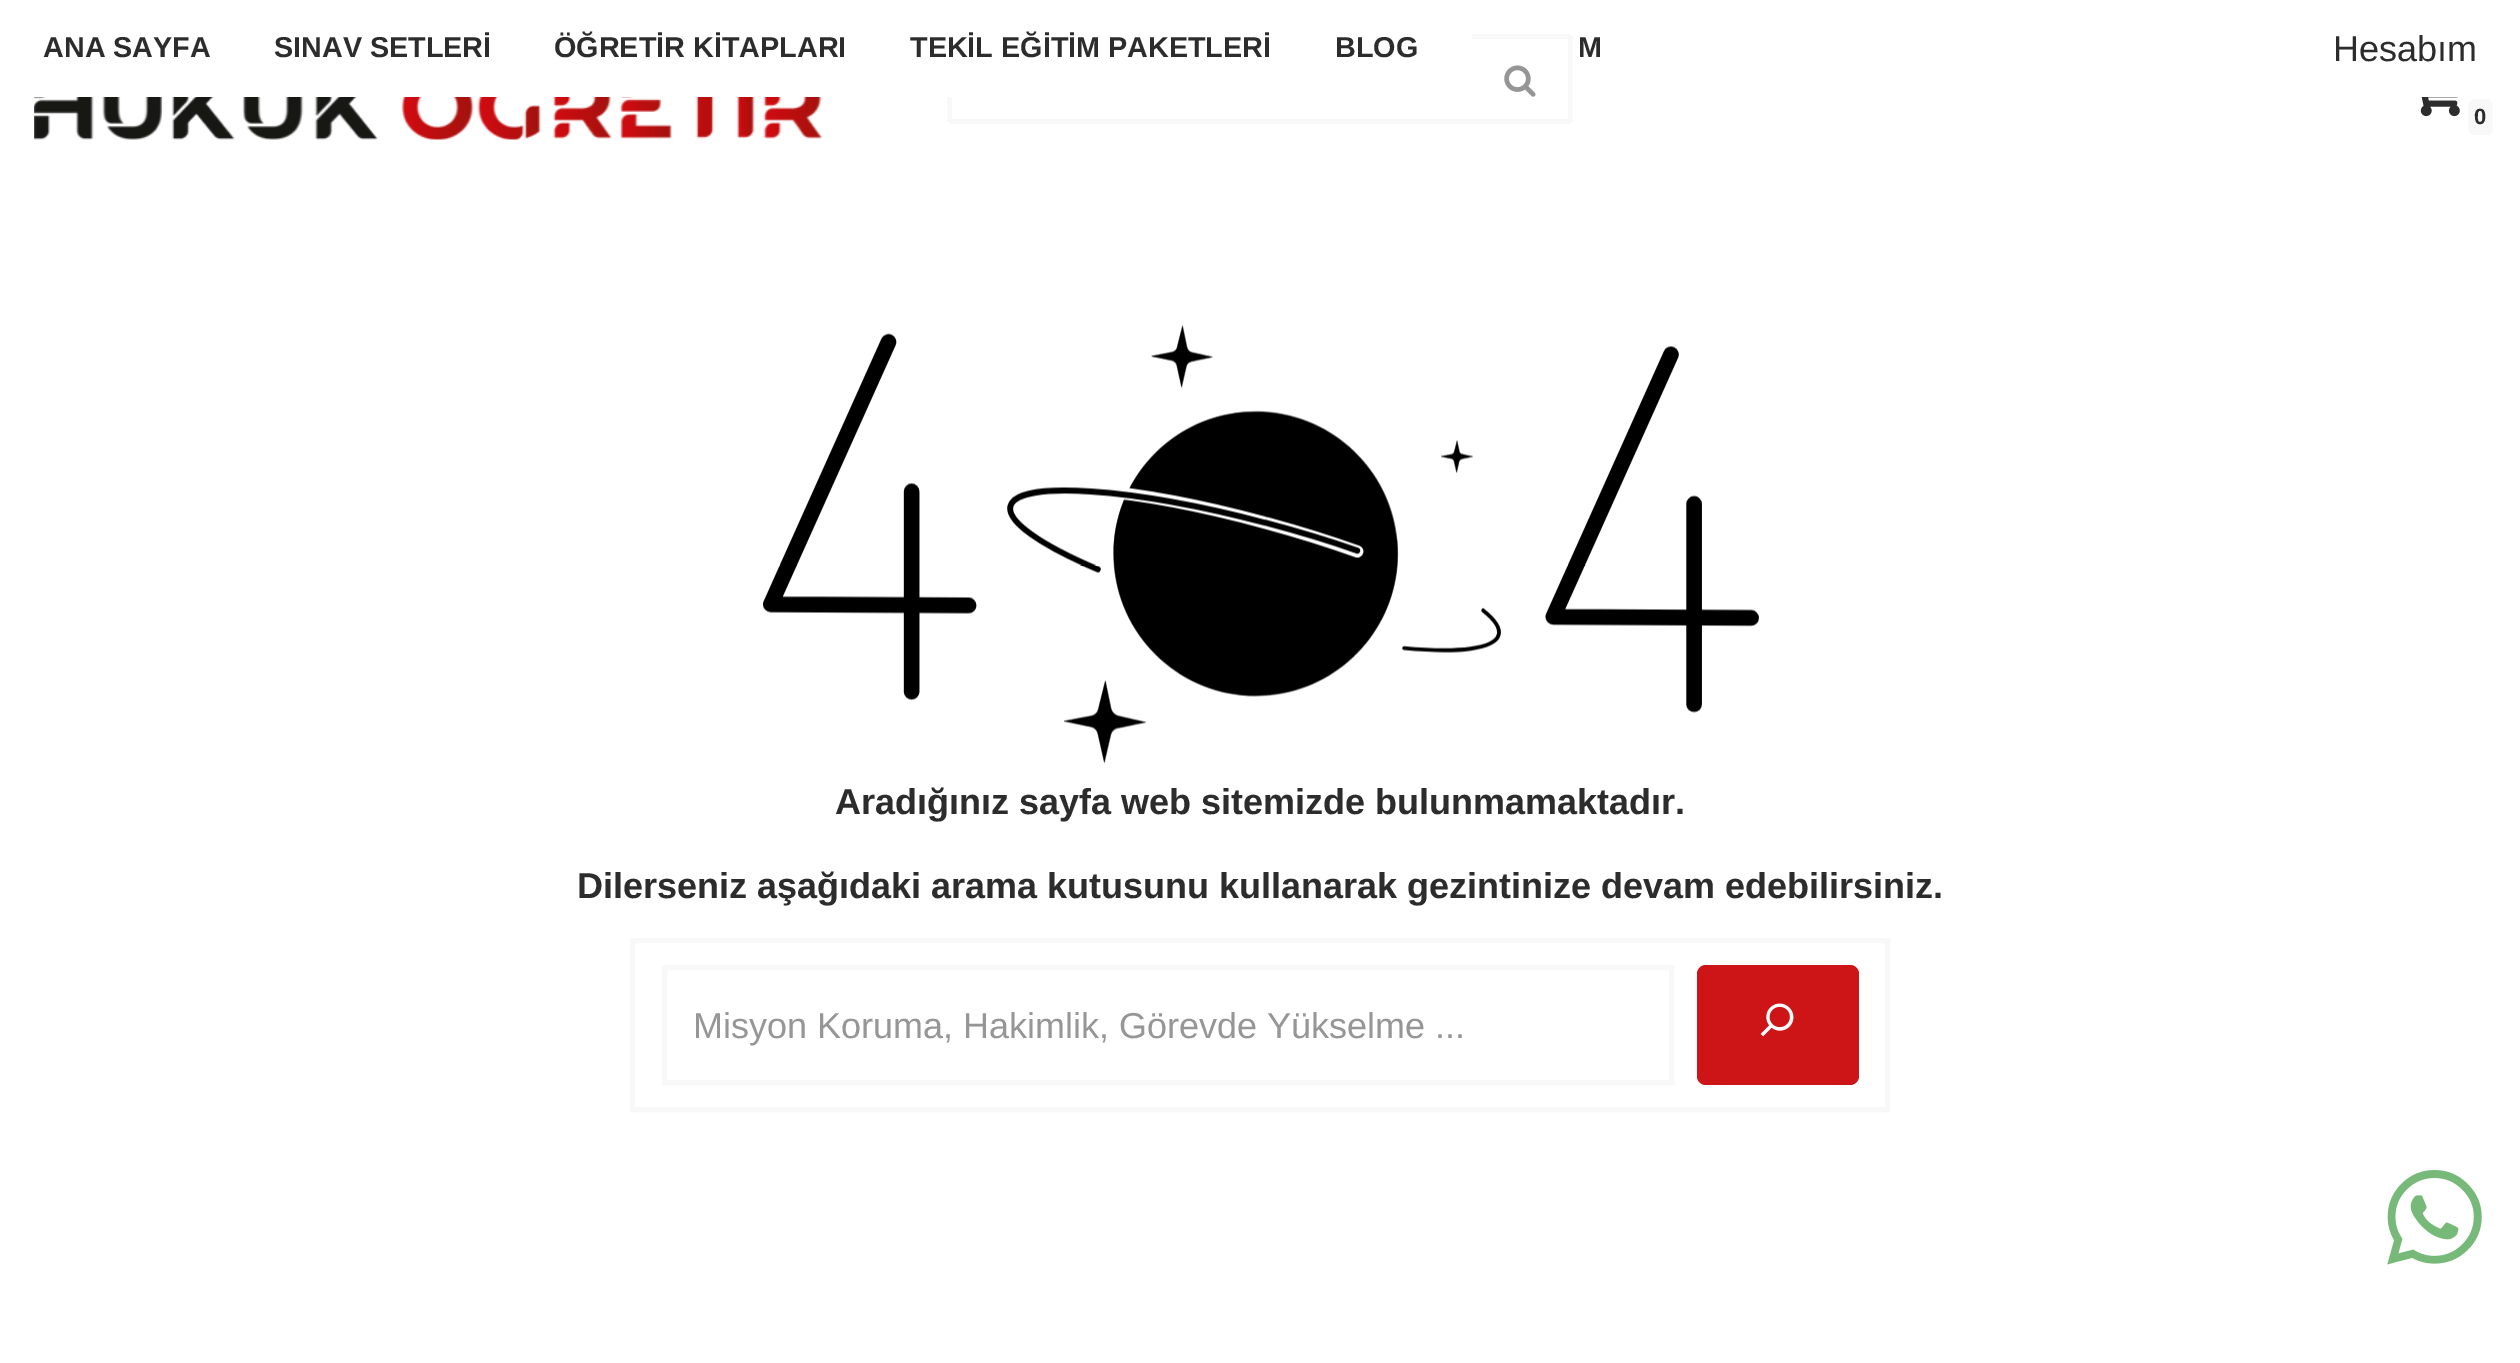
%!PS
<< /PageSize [2520 1363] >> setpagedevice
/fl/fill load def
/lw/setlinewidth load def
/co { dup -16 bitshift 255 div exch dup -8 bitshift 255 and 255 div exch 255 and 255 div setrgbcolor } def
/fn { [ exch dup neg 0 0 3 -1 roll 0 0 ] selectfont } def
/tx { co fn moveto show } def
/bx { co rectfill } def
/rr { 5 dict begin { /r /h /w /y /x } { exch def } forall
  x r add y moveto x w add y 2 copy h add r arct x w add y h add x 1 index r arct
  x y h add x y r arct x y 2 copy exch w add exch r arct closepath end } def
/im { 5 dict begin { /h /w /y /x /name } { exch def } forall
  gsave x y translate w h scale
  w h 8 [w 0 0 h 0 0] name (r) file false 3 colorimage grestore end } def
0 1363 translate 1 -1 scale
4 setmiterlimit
0 0 2520 1363 16#FFFFFF bx
(media/1.raw) 34 97 788 43 im
950 119 522 5 16#F8F8F8 bx
947 97 5 25 16#F8F8F8 bx
1472 34 99 5 16#F8F8F8 bx
1568 36 5 86 16#F8F8F8 bx
1472 119 99 5 16#F8F8F8 bx
(media/2.raw) 1504 65 32 32 im
(media/3.raw) 2420 97 40 20 im
2468 99 25 36 7 rr fl
(media/4.raw) 763 325 996 438 im
5 lw
632.5 940.5 1255 169 rectstroke
664.5 967.5 1007 115 rectstroke
16#CD1417 co
1697 965 162 120 9 rr fl
(media/5.raw) 1760 1003 34 34 im
(media/6.raw) 2387 1170 95 95 im
(ANA SAYFA) 43 57 /LiberationSans-Bold 28.75 16#2C2C2C tx
(SINAV SETLERİ) 274 57 /LiberationSans-Bold 28.75 16#2C2C2C tx
(ÖĞRETİR KİTAPLARI) 554 57 /LiberationSans-Bold 28.75 16#2C2C2C tx
(TEKİL EĞİTİM PAKETLERİ) 910 57 /LiberationSans-Bold 28.75 16#2C2C2C tx
(BLOG) 1335 57 /LiberationSans-Bold 28.75 16#2C2C2C tx
(M) 1578 57 /LiberationSans-Bold 28.75 16#2C2C2C tx
(Hesabım) 2333 61 /LiberationSans-Regular 36 16#2C2C2C tx
(0) 2474 124 /LiberationSans-Bold 22 16#2C2C2C tx
(Aradığınız sayfa web sitemizde bulunmamaktadır.) 835 814 /LiberationSans-Bold 36 16#2C2C2C tx
(Dilerseniz aşağıdaki arama kutusunu kullanarak gezintinize devam edebilirsiniz.) 577 898 /LiberationSans-Bold 36 16#2C2C2C tx
(Misyon Koruma, Hakimlik, Görevde Yükselme ...) 693 1038 /LiberationSans-Regular 36 16#969696 tx
showpage
